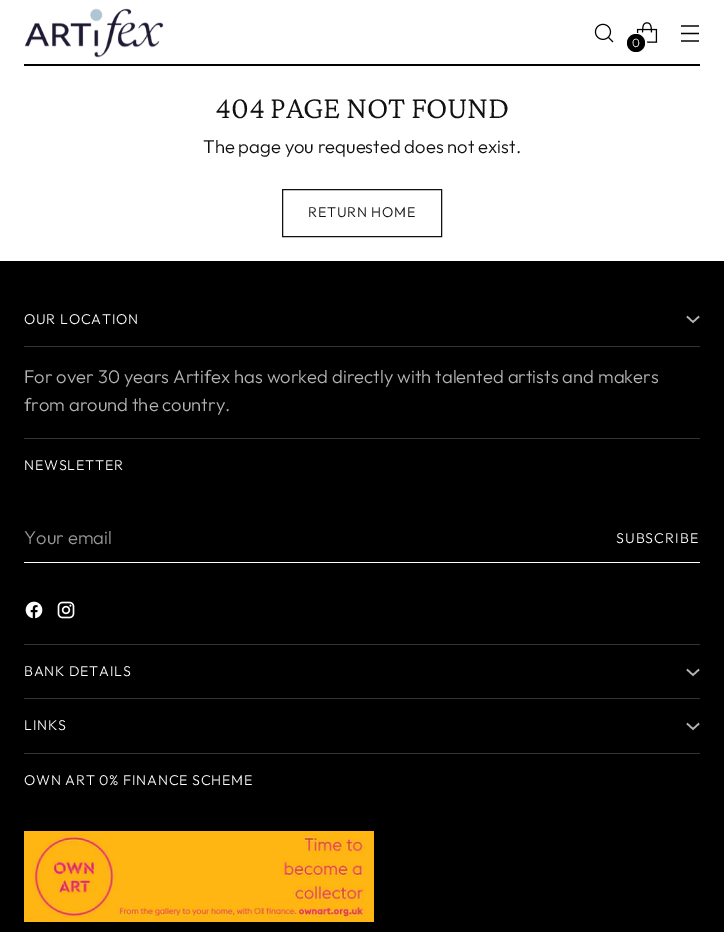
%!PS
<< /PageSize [724 932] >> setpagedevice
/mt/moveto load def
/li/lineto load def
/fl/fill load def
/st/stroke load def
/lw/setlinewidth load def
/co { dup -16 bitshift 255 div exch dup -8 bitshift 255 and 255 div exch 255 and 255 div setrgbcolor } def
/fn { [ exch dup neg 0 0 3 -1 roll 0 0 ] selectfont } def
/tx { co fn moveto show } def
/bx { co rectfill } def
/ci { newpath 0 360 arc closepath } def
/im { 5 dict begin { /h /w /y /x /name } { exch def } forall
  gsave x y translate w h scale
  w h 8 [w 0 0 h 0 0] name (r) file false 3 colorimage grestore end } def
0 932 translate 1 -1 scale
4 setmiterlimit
0 0 724 932 16#FFFFFF bx
24 64 676 2 16#000000 bx
(media/1.raw) 24 8 140 50 im
(media/2.raw) 594 23 20 20 im
1.3 lw
681 33.5 mt 699 33.5 li 681 26 mt 699 26 li 681 41 mt 699 41 li st
(media/3.raw) 636 22 22 21 im
16#FFFFFF co
2 lw
636.5 43.5 9.5 ci st
16#000000 co
636 43 9 ci fl
16#111111 co
1 lw
282.5 189.5 159 47 rectstroke
0 261 724 671 16#000000 bx
24 346 676 1 16#333333 bx
16#B3B3B3 co
1.6 lw
687 316.5 mt 693 322 li 699 316.5 li st
24 438 676 1 16#333333 bx
24 644 676 1 16#333333 bx
24 562 676 1 16#FFFFFF bx
(media/4.raw) 25 601 18 18 im
(media/5.raw) 57 601 18 18 im
24 698 676 1 16#333333 bx
16#B3B3B3 co
687 669.5 mt 693 675 li 699 669.5 li 687 723.5 mt 693 729 li 699 723.5 li st
24 753 676 1 16#333333 bx
(media/6.raw) 24 831 350 91 im
(0) 632 47 /Outfit-Light 12 16#FFFFFF tx
/CrimsonPro-Light 32.25 fn
16#111111 co
215 118 mt -.3 0 (404 PAGE NOT FOUND) ashow
(The page you requested does not exist.) 203 153 /Outfit-Light 18.4 16#111111 tx
/Outfit-Light 14.25 fn
308 217 mt .75 0 (RETURN HOME) ashow
16#FFFFFF co
24 324 mt .75 0 (OUR LOCATION) ashow
(For over 30 years Artifex has worked directly with talented artists and makers) 24 383 /Outfit-Light 18.4 16#B3B3B3 tx
(from around the country.) 24 411 /Outfit-Light 18.4 16#B3B3B3 tx
/Outfit-Light 14.25 fn
16#FFFFFF co
24 470 mt .75 0 (NEWSLETTER) ashow
(Your email) 24 544 /Outfit-Light 18.4 16#999999 tx
/Outfit-Light 14.25 fn
16#FFFFFF co
616 543 mt 1 0 (SUBSCRIBE) ashow
24 676 mt .75 0 (BANK DETAILS) ashow
24 730 mt .75 0 (LINKS) ashow
24 785 mt .75 0 (OWN ART 0% FINANCE SCHEME) ashow
showpage
